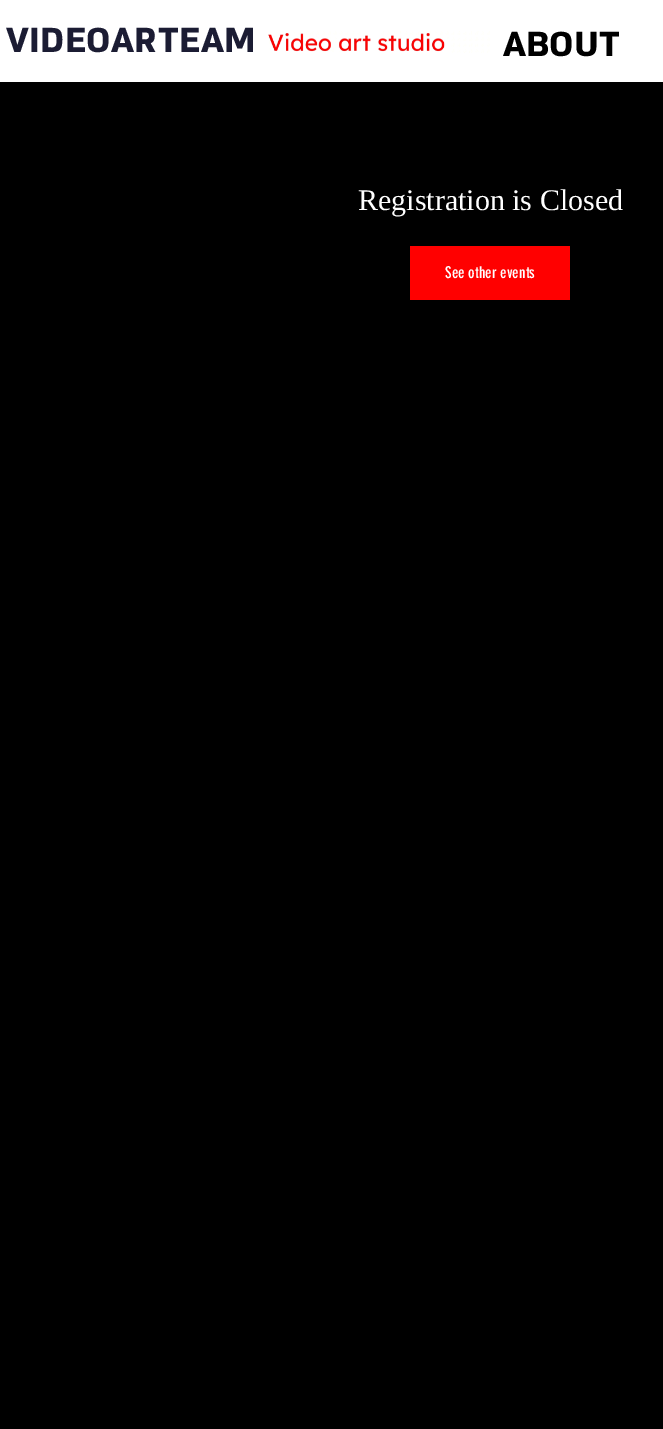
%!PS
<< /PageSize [663 1429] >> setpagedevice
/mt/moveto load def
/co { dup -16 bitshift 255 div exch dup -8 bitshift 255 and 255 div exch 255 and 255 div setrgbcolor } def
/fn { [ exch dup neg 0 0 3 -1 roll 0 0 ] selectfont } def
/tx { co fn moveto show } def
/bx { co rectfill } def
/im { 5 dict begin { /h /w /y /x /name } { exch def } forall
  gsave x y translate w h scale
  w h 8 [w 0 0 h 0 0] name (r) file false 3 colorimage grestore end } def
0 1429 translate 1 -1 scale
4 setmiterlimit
0 0 663 1429 16#000000 bx
0 0 663 82 16#FFFFFF bx
(media/1.raw) 268 31 222 22 im
410 246 160 54 16#FF0000 bx
/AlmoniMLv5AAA-Bold 40 fn
16#1B1C33 co
6 52 mt .4 0 (VIDEOARTEAM) ashow
(ABOUT) 503 56 /AlmoniMLv5AAA-Bold 40 16#000000 tx
(Registration is Closed) 358 210 /LiberationSerif-Regular 30 16#FFFFFF tx
(See other events) 445 278 /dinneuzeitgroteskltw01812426-Regular 16 16#FFFFFF tx
showpage
